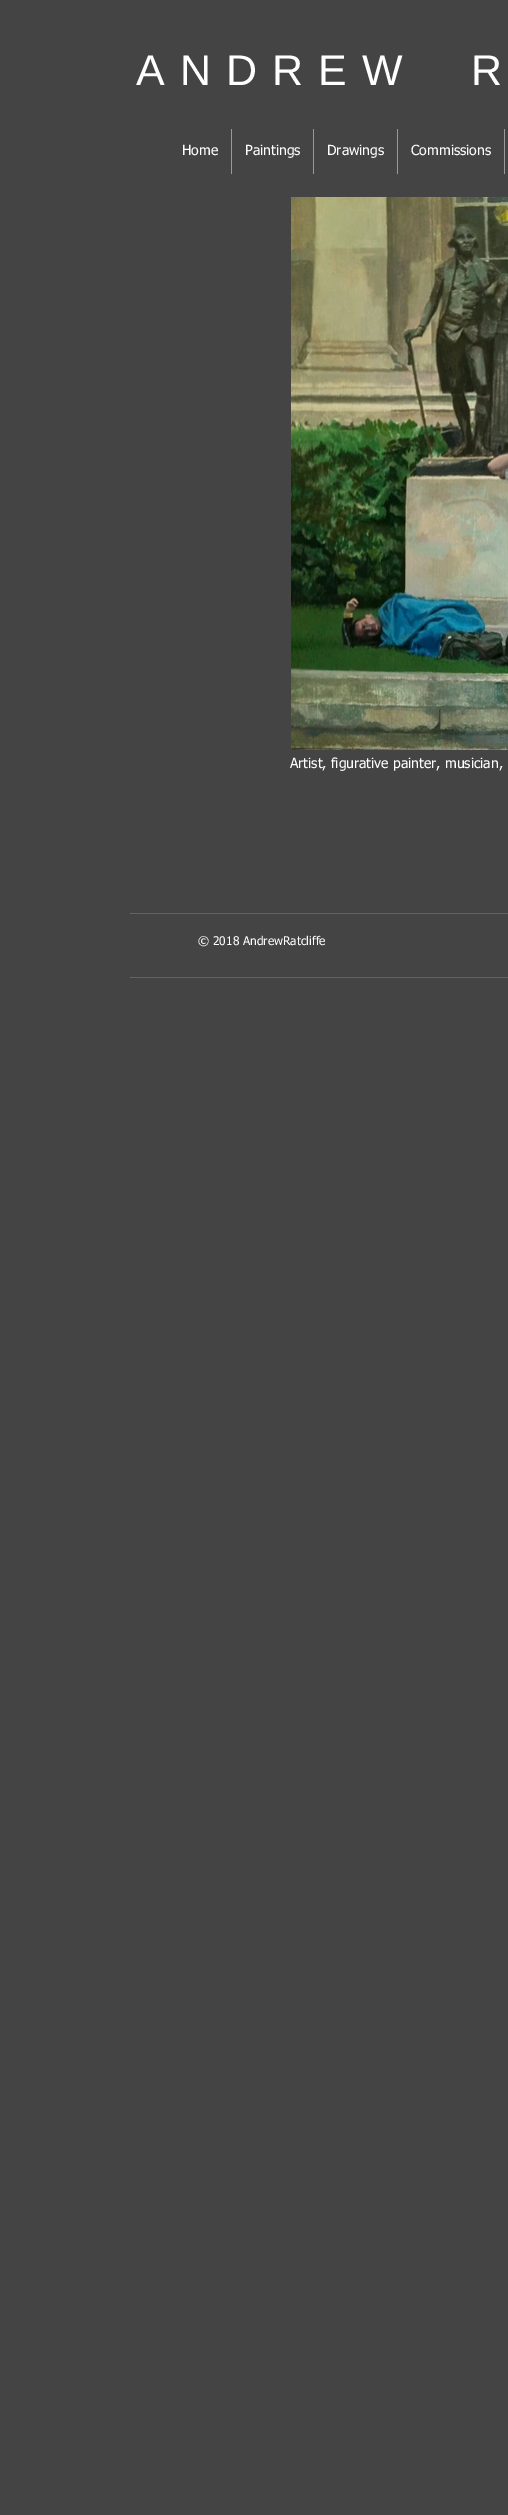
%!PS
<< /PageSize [508 2515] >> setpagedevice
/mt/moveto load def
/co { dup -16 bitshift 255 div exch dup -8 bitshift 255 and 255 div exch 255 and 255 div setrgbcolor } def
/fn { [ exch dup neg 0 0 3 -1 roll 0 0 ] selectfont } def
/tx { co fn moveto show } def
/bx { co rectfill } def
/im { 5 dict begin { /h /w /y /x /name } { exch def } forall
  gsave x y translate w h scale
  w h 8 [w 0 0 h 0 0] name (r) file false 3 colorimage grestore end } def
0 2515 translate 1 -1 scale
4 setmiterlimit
0 0 508 2515 16#444444 bx
231 129 1 45 16#999999 bx
313 129 1 45 16#999999 bx
397 129 1 45 16#999999 bx
504 129 1 45 16#999999 bx
(media/1.raw) 291 197 217 553 im
130 913 378 1 16#3D746B bx
130 977 378 1 16#3D746B bx
/LiberationSans-Regular 43 fn
16#FFFFFF co
136 85 mt 15 0 (ANDREW  R) ashow
(Home) 182 155 /tahoma-Regular 14 16#FFFFFF tx
(Paintings) 245 155 /tahoma-Regular 14 16#FFFFFF tx
(Drawings) 327 155 /tahoma-Regular 14 16#FFFFFF tx
(Commissions) 411 155 /tahoma-Regular 14 16#FFFFFF tx
(Artist, figurative painter, musician,) 290 768 /tahoma-Regular 14 16#FFFFFF tx
(© 2018 AndrewRatcliffe) 198 945 /tahoma-Regular 12 16#FFFFFF tx
showpage
